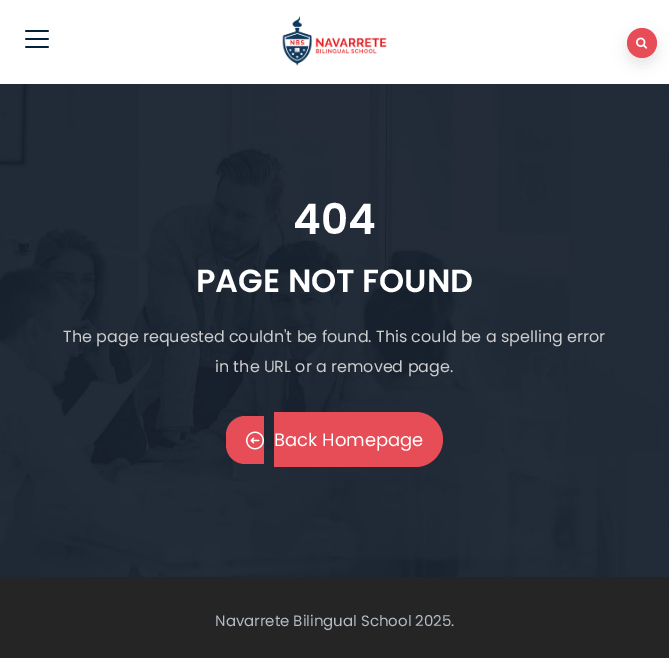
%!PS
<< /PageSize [669 658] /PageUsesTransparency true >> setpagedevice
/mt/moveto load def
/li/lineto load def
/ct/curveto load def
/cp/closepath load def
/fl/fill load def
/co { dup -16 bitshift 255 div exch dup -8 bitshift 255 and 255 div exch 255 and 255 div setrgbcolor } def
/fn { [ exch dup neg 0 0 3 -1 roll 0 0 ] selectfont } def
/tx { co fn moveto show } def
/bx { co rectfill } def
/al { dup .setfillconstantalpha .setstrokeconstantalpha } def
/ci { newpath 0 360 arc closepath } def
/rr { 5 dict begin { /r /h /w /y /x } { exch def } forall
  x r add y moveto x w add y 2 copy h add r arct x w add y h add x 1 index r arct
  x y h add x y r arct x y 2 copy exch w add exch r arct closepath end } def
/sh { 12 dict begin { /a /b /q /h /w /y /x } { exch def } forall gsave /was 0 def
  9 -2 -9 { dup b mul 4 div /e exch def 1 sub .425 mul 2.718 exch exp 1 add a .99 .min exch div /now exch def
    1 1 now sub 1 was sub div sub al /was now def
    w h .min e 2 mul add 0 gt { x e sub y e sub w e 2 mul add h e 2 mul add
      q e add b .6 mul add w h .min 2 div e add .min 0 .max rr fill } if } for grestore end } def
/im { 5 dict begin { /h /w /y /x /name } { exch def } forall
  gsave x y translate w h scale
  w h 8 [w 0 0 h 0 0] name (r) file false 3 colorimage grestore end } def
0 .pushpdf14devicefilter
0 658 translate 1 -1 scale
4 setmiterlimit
0 0 669 658 16#FFFFFF bx
(media/1.raw) 25 30 24 18 im
(media/2.raw) 282 16 105 50 im
(media/4.raw) 0 84 669 493 im
16#000000 co
627 34 30 30 15 7 .1 sh
16#E74D57 co
642 43 15 ci fl
(media/3.raw) 636 37 12 12 im
245 416 mt 264 416 li 264 464 li 245 464 li 234.5 464 226 455.5 226 445 ct 226 435 li 226 424.5 234.5 416 245 416 ct cp fl
(media/5.raw) 246 431 18 19 im
274 412 mt 415.5 412 li 430.5 412 443 424.5 443 439.5 ct 443 454.5 430.5 467 415.5 467 ct 274 467 li cp fl
0 577 669 81 16#252525 bx
(404) 293 234 /Poppins-SemiBold 42 16#FFFFFF tx
(PAGE NOT FOUND) 196 292 /Poppins-SemiBold 32 16#FFFFFF tx
(The page requested couldn't be found. This could be a spelling error) 63 342 /Poppins-Regular 16 16#CCCCCC tx
(in the URL or a removed page.) 215 372 /Poppins-Regular 16 16#CCCCCC tx
(Back Homepage) 274 446 /Poppins-Regular 18 16#FFFFFF tx
(Navarrete Bilingual School 2025.) 215 626 /Poppins-Regular 15 16#B3BBC6 tx
.poppdf14devicefilter showpage
